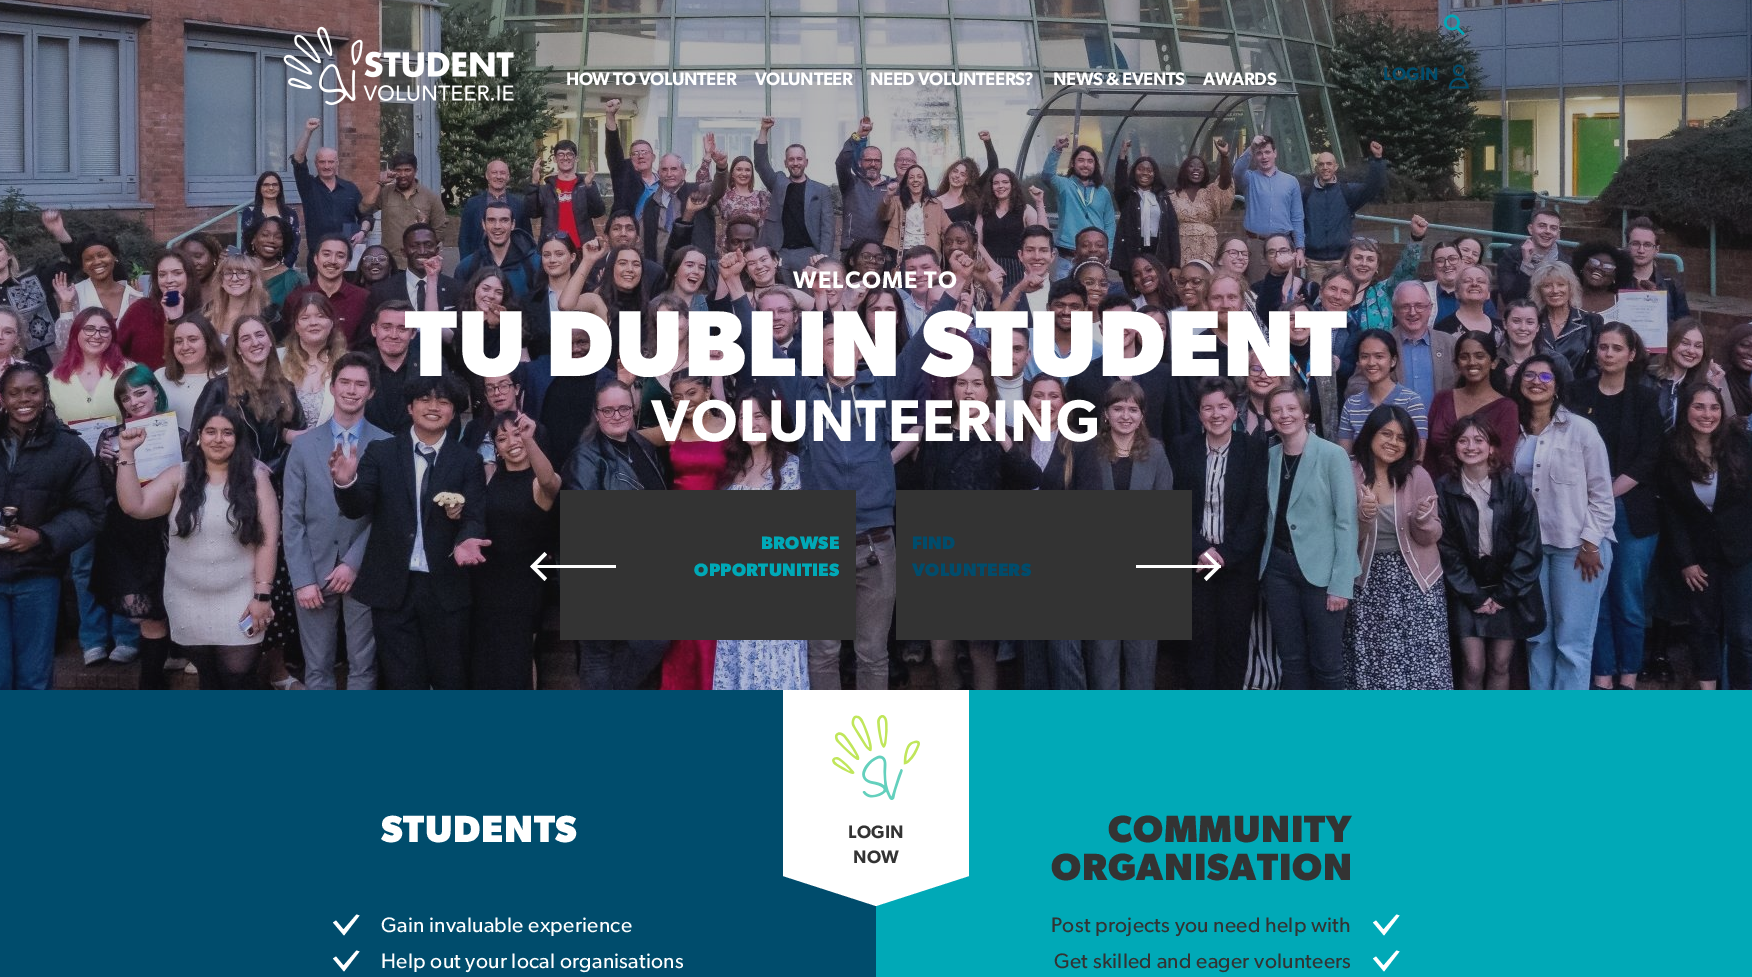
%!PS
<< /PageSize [1752 977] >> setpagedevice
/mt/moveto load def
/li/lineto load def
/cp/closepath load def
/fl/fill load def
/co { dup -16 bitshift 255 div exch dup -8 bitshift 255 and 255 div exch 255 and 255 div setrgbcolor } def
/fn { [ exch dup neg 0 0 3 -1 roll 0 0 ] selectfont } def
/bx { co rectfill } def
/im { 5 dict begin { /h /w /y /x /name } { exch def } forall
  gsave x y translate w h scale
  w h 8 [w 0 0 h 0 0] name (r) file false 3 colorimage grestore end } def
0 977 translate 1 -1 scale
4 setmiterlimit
0 0 1752 977 16#FFFFFF bx
(media/4.raw) 0 0 1752 690 im
(media/1.raw) 283 26 231 80 im
(media/2.raw) 1444 14 21 22 im
(media/3.raw) 1449 64 20 25 im
560 490 296 150 16#333333 bx
531 565 85 3 16#FFFFFF bx
544.5 581 mt 547 578 li 535.5 566.5 li 547 554.5 li 544.5 552 li 530 566.5 li cp fl
896 490 296 150 16#333333 bx
1136 565 85 3 16#FFFFFF bx
1206.5 552 mt 1204 554.5 li 1216 566.5 li 1204 578 li 1206.5 581 li 1221 566.5 li cp fl
0 690 876 287 16#004C6C bx
16#FFFFFF co
333 922.5 mt 344 935.5 li 359.5 915.5 li 356.5 914.5 li 343.5 929.5 li 336 920.5 li cp fl
333 958.5 mt 344 971.5 li 359.5 951.5 li 356.5 950.5 li 343.5 965.5 li 336 956.5 li cp fl
876 690 876 287 16#00A9B7 bx
783 690 186 186 16#FFFFFF bx
(media/5.raw) 832 715 88 85 im
783 876 mt 969 876 li 876 906 li cp fl
1373 922.5 mt 1384 935.5 li 1399.5 915.5 li 1396.5 914.5 li 1383.5 929.5 li 1376 920.5 li cp fl
1373 958.5 mt 1384 971.5 li 1399.5 951.5 li 1396.5 950.5 li 1383.5 965.5 li 1376 956.5 li cp fl
/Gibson-SemiBold 18 fn
566 85 mt -.4 0 (HOW TO VOLUNTEER) ashow
755 85 mt -.4 0 (VOLUNTEER) ashow
870 85 mt -.4 0 (NEED VOLUNTEERS?) ashow
1053 85 mt -.4 0 (NEWS & EVENTS) ashow
1203 85 mt -.4 0 (AWARDS) ashow
16#004C6C co
1383 80 mt .3 0 (LOGIN) ashow
/Gibson-SemiBold 24 fn
16#FFFFFF co
793 288 mt 1.2 0 (WELCOME TO) ashow
/Gibson-Bold 94 fn
405 376 mt 1.2 0 (TU DUBLIN STUDENT) ashow
/Gibson-SemiBold 59 fn
651 441 mt 1.2 0 (VOLUNTEERING) ashow
/Gibson-Bold 18 fn
16#00A9B7 co
761 549 mt .3 0 (BROWSE) ashow
694 576 mt .3 0 (OPPORTUNITIES) ashow
16#004C6C co
912 549 mt .3 0 (FIND) ashow
912 576 mt .3 0 (VOLUNTEERS) ashow
/Gibson-Bold 38 fn
16#FFFFFF co
381 842 mt .75 0 (STUDENTS) ashow
/Gibson-Regular 21 fn
381 932 mt .3 0 (Gain invaluable experience) ashow
381 968 mt .3 0 (Help out your local organisations) ashow
/Gibson-SemiBold 18 fn
16#333333 co
848 838 mt .3 0 (LOGIN) ashow
853 863 mt .3 0 (NOW) ashow
/Gibson-Bold 38 fn
1108 842 mt .75 0 (COMMUNITY) ashow
1051 880 mt .75 0 (ORGANISATION) ashow
/Gibson-Regular 21 fn
1051 932 mt .3 0 (Post projects you need help with) ashow
1054 968 mt .3 0 (Get skilled and eager volunteers) ashow
showpage
